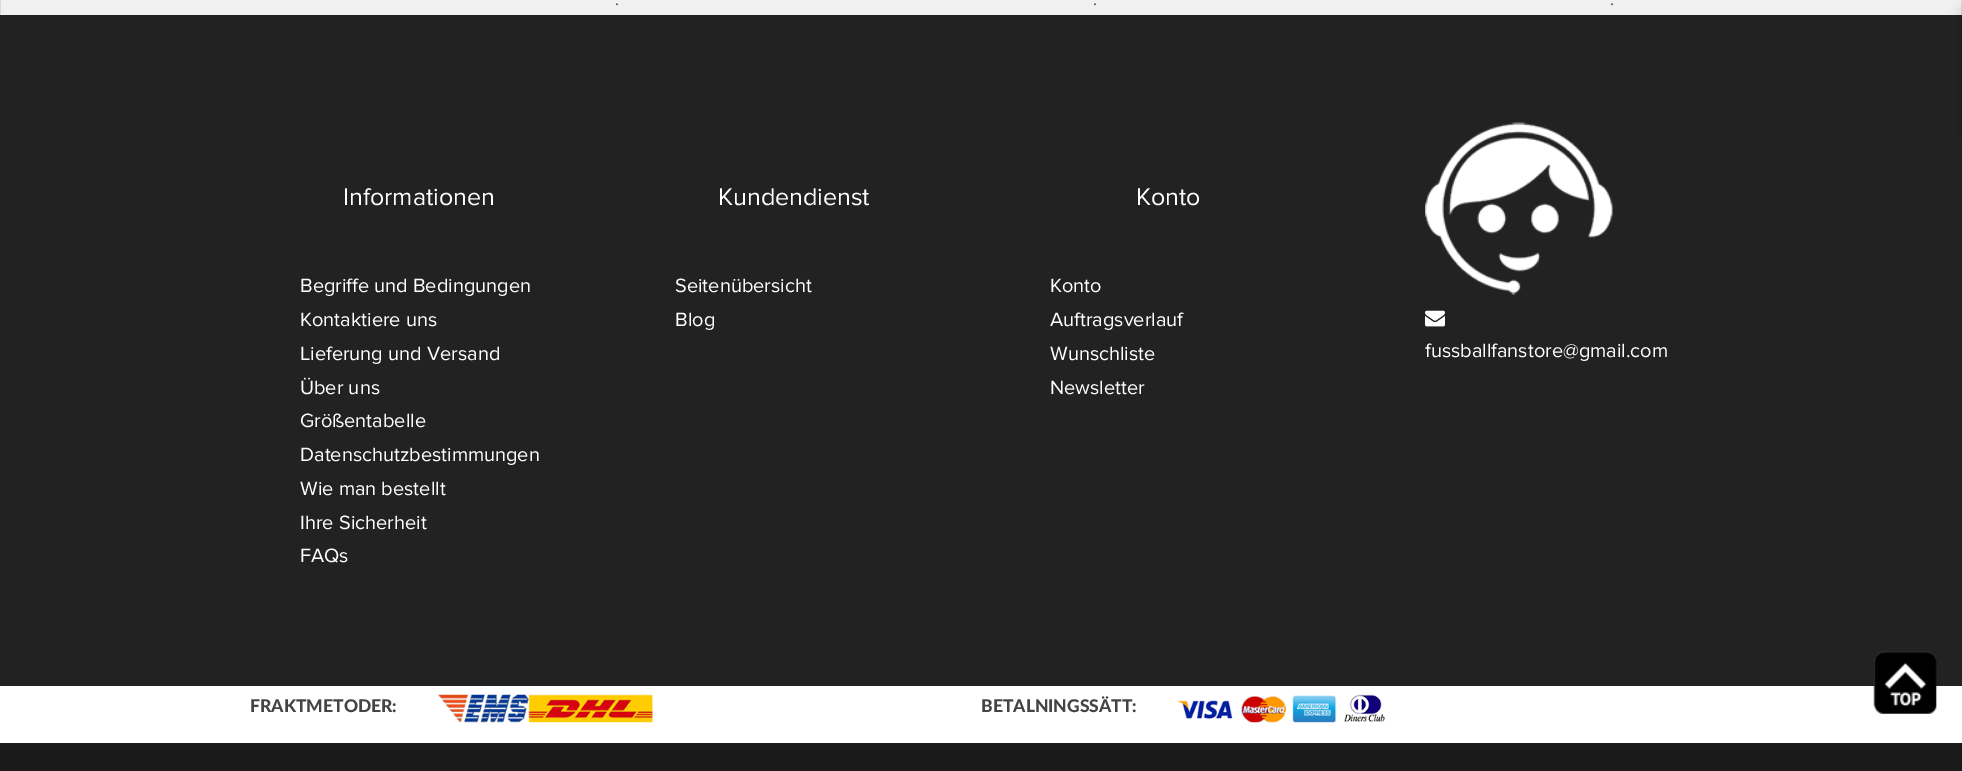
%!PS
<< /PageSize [1962 771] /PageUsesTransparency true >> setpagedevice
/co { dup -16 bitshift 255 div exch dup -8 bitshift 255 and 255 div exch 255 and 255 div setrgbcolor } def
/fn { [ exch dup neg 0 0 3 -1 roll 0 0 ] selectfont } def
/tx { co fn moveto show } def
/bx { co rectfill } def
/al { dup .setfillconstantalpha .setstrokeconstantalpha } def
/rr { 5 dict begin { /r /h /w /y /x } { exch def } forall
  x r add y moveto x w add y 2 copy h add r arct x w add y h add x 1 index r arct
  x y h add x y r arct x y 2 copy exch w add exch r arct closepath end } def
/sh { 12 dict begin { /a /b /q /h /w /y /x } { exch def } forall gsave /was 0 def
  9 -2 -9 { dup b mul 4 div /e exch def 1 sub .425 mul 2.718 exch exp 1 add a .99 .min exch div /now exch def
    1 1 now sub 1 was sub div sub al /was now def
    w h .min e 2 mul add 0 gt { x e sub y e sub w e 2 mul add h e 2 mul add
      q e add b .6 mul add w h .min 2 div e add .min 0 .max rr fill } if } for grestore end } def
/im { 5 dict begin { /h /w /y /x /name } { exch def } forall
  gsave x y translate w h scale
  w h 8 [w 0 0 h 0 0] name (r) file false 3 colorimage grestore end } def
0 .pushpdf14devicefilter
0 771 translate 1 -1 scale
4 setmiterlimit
0 0 1962 771 16#FFFFFF bx
1961 0 1 15 16#D9D9D9 bx
0 0 1 15 16#D9D9D9 bx
1 0 1960 15 16#F1F1F1 bx
0 15 1962 671 16#222222 bx
16#000000 co
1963 10 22 125 0 7.5 .18 sh
(media/1.raw) 1425 122 188 173 im
(media/2.raw) 1425 310 20 17 im
0 743 1962 28 16#1A1A1A bx
(media/3.raw) 1873 651 64 63 im
(media/4.raw) 438 694 215 29 im
(media/5.raw) 1177 694 208 29 im
(.) 615 5 /ProximaNova-Regular 17.5 16#565656 tx
(.) 1093 5 /ProximaNova-Regular 17.5 16#565656 tx
(.) 1610 5 /ProximaNova-Regular 17.5 16#565656 tx
(Informationen) 343 205 /ProximaNova-Regular 25 16#FFFFFF tx
(Begriffe und Bedingungen) 300 292 /ProximaNova-Regular 20 16#FFFFFF tx
(Kontaktiere uns) 300 326 /ProximaNova-Regular 20 16#FFFFFF tx
(Lieferung und Versand) 300 360 /ProximaNova-Regular 20 16#FFFFFF tx
(Über uns) 300 394 /ProximaNova-Regular 20 16#FFFFFF tx
(Größentabelle) 300 427 /ProximaNova-Regular 20 16#FFFFFF tx
(Datenschutzbestimmungen) 300 461 /ProximaNova-Regular 20 16#FFFFFF tx
(Wie man bestellt) 300 495 /ProximaNova-Regular 20 16#FFFFFF tx
(Ihre Sicherheit) 300 529 /ProximaNova-Regular 20 16#FFFFFF tx
(FAQs) 300 562 /ProximaNova-Regular 20 16#FFFFFF tx
(Kundendienst) 718 205 /ProximaNova-Regular 25 16#FFFFFF tx
(Seitenübersicht) 675 292 /ProximaNova-Regular 20 16#FFFFFF tx
(Blog) 675 326 /ProximaNova-Regular 20 16#FFFFFF tx
(Konto) 1136 205 /ProximaNova-Regular 25 16#FFFFFF tx
(Konto) 1050 292 /ProximaNova-Regular 20 16#FFFFFF tx
(Auftragsverlauf) 1050 326 /ProximaNova-Regular 20 16#FFFFFF tx
(Wunschliste) 1050 360 /ProximaNova-Regular 20 16#FFFFFF tx
(Newsletter) 1050 394 /ProximaNova-Regular 20 16#FFFFFF tx
(fussballfanstore@gmail.com) 1425 357 /ProximaNova-Regular 20 16#FFFFFF tx
(FRAKTMETODER:) 250 712 /Lato-Black 17.5 16#444444 tx
(BETALNINGSSÄTT:) 981 712 /Lato-Black 17.5 16#444444 tx
.poppdf14devicefilter showpage
